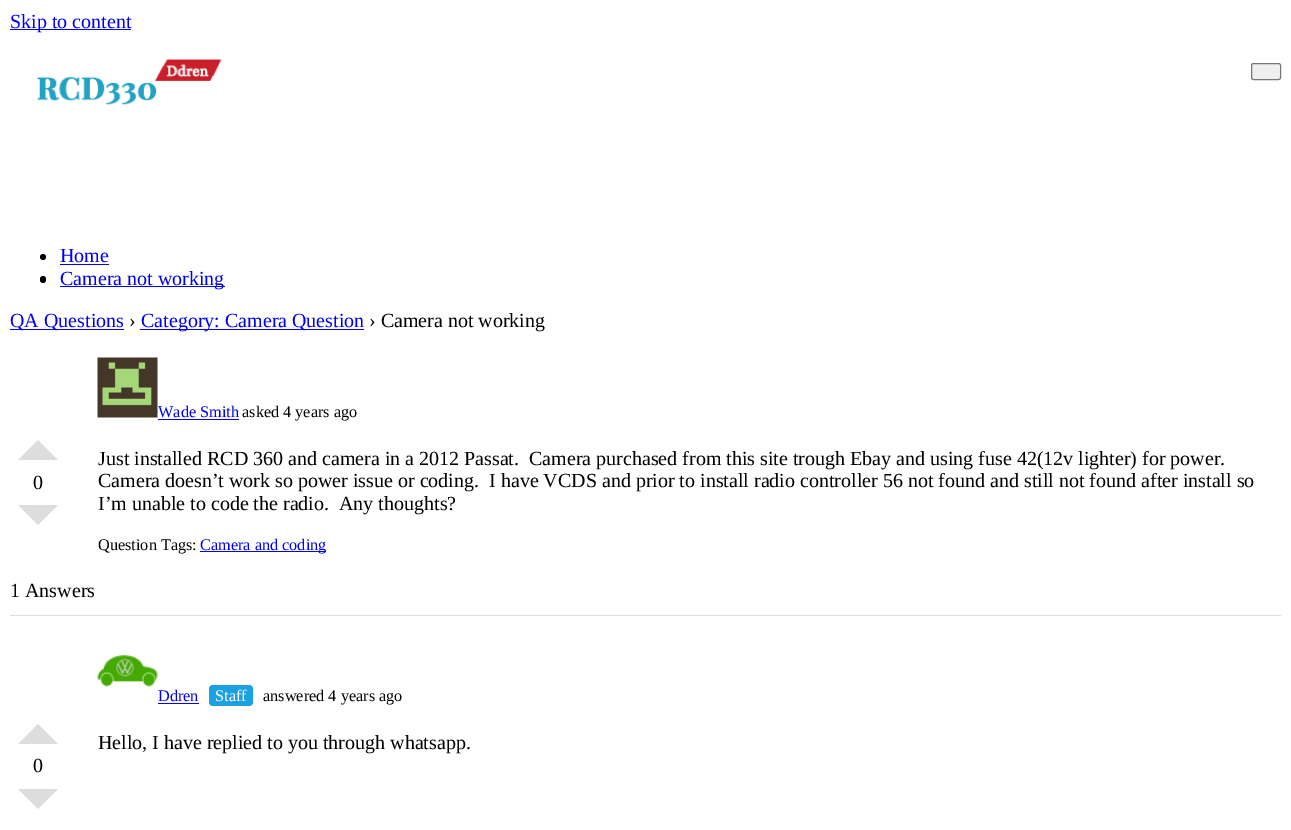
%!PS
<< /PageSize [1291 830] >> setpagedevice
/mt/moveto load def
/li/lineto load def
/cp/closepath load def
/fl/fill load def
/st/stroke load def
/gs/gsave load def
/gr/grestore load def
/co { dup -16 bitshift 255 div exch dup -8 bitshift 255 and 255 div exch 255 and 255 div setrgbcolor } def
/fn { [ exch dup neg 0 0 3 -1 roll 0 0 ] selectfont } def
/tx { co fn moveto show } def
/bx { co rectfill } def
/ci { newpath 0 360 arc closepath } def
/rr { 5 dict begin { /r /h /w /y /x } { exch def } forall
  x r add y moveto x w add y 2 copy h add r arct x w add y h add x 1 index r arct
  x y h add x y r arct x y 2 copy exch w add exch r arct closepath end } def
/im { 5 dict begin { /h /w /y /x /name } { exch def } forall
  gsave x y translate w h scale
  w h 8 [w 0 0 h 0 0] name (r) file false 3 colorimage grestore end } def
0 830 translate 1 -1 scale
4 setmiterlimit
0 0 1291 830 16#FFFFFF bx
10 29 121 1 16#0000EE bx
(media/1.raw) 36 59 186 46 im
16#EFEFEF co
1251.5 63.5 29 16 2 rr gs fl gr
16#767676 co
st
16#000000 co
43 257 3 ci fl
60 264 49 1 16#0000EE bx
16#000000 co
40 276 6 7 3 rr fl
60 286 165 1 16#0000EE bx
10 329 114 1 16#0000EE bx
140 329 224 1 16#0000EE bx
(media/2.raw) 97 357 61 61 im
158 419 81 1 16#0000EE bx
16#DDDDDD co
58 460 mt 18 460 li 38 440 li cp fl
18 505 mt 58 505 li 38 525 li cp fl
200 551 126 1 16#0000EE bx
10 615 1271 1 16#DDDDDD bx
(media/3.raw) 97 654 61 33 im
158 703 41 1 16#0000EE bx
16#1BA1E2 co
209 685 44 21 4 rr fl
16#DDDDDD co
58 744 mt 18 744 li 38 724 li cp fl
18 789 mt 58 789 li 38 809 li cp fl
(Skip to content) 10 28 /LiberationSerif-Regular 20 16#0000EE tx
(Home) 60 262 /LiberationSerif-Regular 20 16#0000EE tx
(Camera not working) 60 285 /LiberationSerif-Regular 20 16#0000EE tx
(QA Questions) 10 327 /LiberationSerif-Regular 20 16#0000EE tx
(›) 129 327 /LiberationSerif-Regular 20 16#000000 tx
(Category: Camera Question) 141 327 /LiberationSerif-Regular 20 16#0000EE tx
(› Camera not working) 369 327 /LiberationSerif-Regular 20 16#000000 tx
(Wade Smith) 158 417 /LiberationSerif-Regular 16.25 16#0000EE tx
(asked 4 years ago) 242 417 /LiberationSerif-Regular 16.25 16#000000 tx
(0) 33 489 /LiberationSerif-Regular 20 16#000000 tx
(Just installed RCD 360 and camera in a 2012 Passat.  Camera purchased from this site trough Ebay and using fuse 42\(12v lighter\) for power.) 98 465 /LiberationSerif-Regular 20 16#000000 tx
(Camera doesn’t work so power issue or coding.  I have VCDS and prior to install radio controller 56 not found and still not found after install so) 98 487 /LiberationSerif-Regular 20 16#000000 tx
(I’m unable to code the radio.  Any thoughts?) 98 510 /LiberationSerif-Regular 20 16#000000 tx
(Question Tags:) 98 550 /LiberationSerif-Regular 16.25 16#000000 tx
(Camera and coding) 200 550 /LiberationSerif-Regular 16.25 16#0000EE tx
(1 Answers) 10 597 /LiberationSerif-Regular 20 16#000000 tx
(Ddren) 158 701 /LiberationSerif-Regular 16.25 16#0000EE tx
(Staff) 215 701 /LiberationSerif-Regular 16.25 16#FFFFFF tx
(answered 4 years ago) 263 701 /LiberationSerif-Regular 16.25 16#000000 tx
(Hello, I have replied to you through whatsapp.) 98 749 /LiberationSerif-Regular 20 16#000000 tx
(0) 33 772 /LiberationSerif-Regular 20 16#000000 tx
showpage
